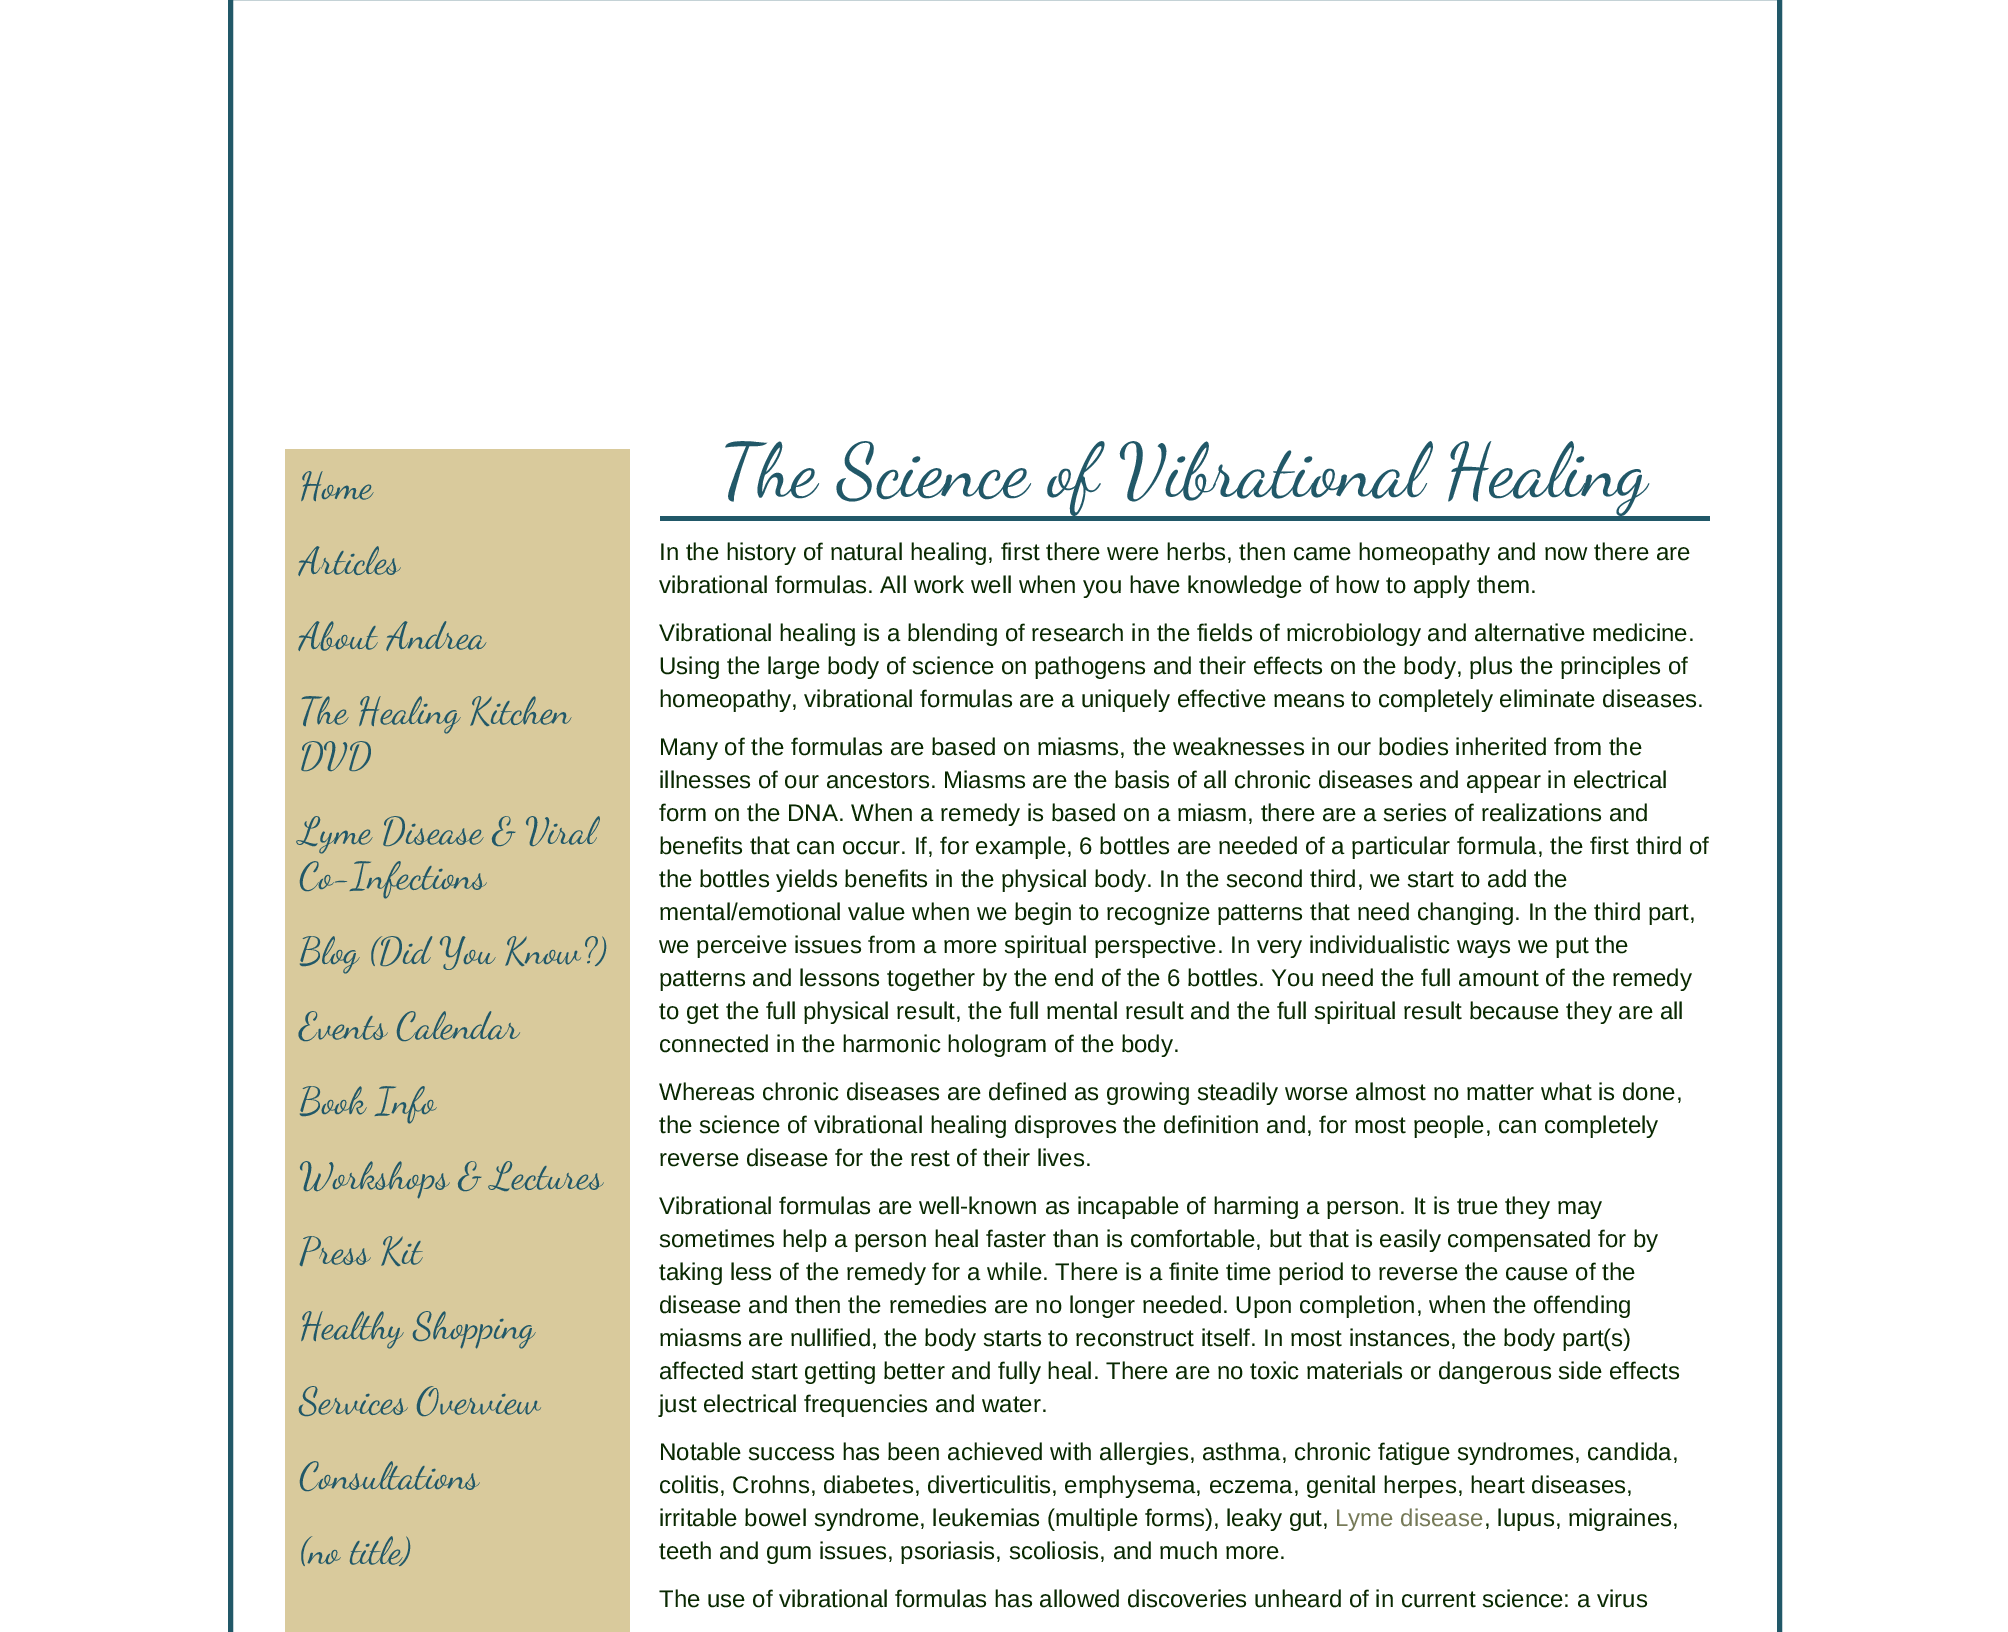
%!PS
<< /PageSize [2008 1632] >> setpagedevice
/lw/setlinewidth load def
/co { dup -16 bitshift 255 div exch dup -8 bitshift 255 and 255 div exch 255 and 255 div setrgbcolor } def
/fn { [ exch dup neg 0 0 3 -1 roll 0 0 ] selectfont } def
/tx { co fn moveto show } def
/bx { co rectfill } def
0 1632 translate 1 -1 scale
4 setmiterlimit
0 0 2008 1632 16#FFFFFF bx
16#215868 co
5 lw
230.5 -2.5 1549 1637 rectstroke
285 449 345 1183 16#D9CA9C bx
660 516 1050 5 16#215868 bx
(Home) 299 498 /DancingScript-Regular 37.5 16#215868 tx
(Articles) 299 573 /DancingScript-Regular 37.5 16#215868 tx
(About Andrea) 299 648 /DancingScript-Regular 37.5 16#215868 tx
(The Healing Kitchen) 299 723 /DancingScript-Regular 37.5 16#215868 tx
(DVD) 299 768 /DancingScript-Regular 37.5 16#215868 tx
(Lyme Disease & Viral) 299 843 /DancingScript-Regular 37.5 16#215868 tx
(Co-Infections) 299 888 /DancingScript-Regular 37.5 16#215868 tx
(Blog \(Did You Know?\)) 299 963 /DancingScript-Regular 37.5 16#215868 tx
(Events Calendar) 299 1038 /DancingScript-Regular 37.5 16#215868 tx
(Book Info) 299 1113 /DancingScript-Regular 37.5 16#215868 tx
(Workshops & Lectures) 299 1188 /DancingScript-Regular 37.5 16#215868 tx
(Press Kit) 299 1263 /DancingScript-Regular 37.5 16#215868 tx
(Healthy Shopping) 299 1338 /DancingScript-Regular 37.5 16#215868 tx
(Services Overview) 299 1413 /DancingScript-Regular 37.5 16#215868 tx
(Consultations) 299 1488 /DancingScript-Regular 37.5 16#215868 tx
(\(no title\)) 299 1563 /DancingScript-Regular 37.5 16#215868 tx
(The Science of Vibrational Healing) 720 495 /DancingScript-Regular 75 16#215868 tx
(In the history of natural healing, first there were herbs, then came homeopathy and now there are) 659 560 /LiberationSans-Regular 24 16#092901 tx
(vibrational formulas. All work well when you have knowledge of how to apply them.) 659 593 /LiberationSans-Regular 24 16#092901 tx
(Vibrational healing is a blending of research in the fields of microbiology and alternative medicine.) 659 641 /LiberationSans-Regular 24 16#092901 tx
(Using the large body of science on pathogens and their effects on the body, plus the principles of) 659 674 /LiberationSans-Regular 24 16#092901 tx
(homeopathy, vibrational formulas are a uniquely effective means to completely eliminate diseases.) 659 707 /LiberationSans-Regular 24 16#092901 tx
(Many of the formulas are based on miasms, the weaknesses in our bodies inherited from the) 659 755 /LiberationSans-Regular 24 16#092901 tx
(illnesses of our ancestors. Miasms are the basis of all chronic diseases and appear in electrical) 659 788 /LiberationSans-Regular 24 16#092901 tx
(form on the DNA. When a remedy is based on a miasm, there are a series of realizations and) 659 821 /LiberationSans-Regular 24 16#092901 tx
(benefits that can occur. If, for example, 6 bottles are needed of a particular formula, the first third of) 659 854 /LiberationSans-Regular 24 16#092901 tx
(the bottles yields benefits in the physical body. In the second third, we start to add the) 659 887 /LiberationSans-Regular 24 16#092901 tx
(mental/emotional value when we begin to recognize patterns that need changing. In the third part,) 659 920 /LiberationSans-Regular 24 16#092901 tx
(we perceive issues from a more spiritual perspective. In very individualistic ways we put the) 659 953 /LiberationSans-Regular 24 16#092901 tx
(patterns and lessons together by the end of the 6 bottles. You need the full amount of the remedy) 659 986 /LiberationSans-Regular 24 16#092901 tx
(to get the full physical result, the full mental result and the full spiritual result because they are all) 659 1019 /LiberationSans-Regular 24 16#092901 tx
(connected in the harmonic hologram of the body.) 659 1052 /LiberationSans-Regular 24 16#092901 tx
(Whereas chronic diseases are defined as growing steadily worse almost no matter what is done,) 659 1100 /LiberationSans-Regular 24 16#092901 tx
(the science of vibrational healing disproves the definition and, for most people, can completely) 659 1133 /LiberationSans-Regular 24 16#092901 tx
(reverse disease for the rest of their lives.) 659 1166 /LiberationSans-Regular 24 16#092901 tx
(Vibrational formulas are well-known as incapable of harming a person. It is true they may) 659 1214 /LiberationSans-Regular 24 16#092901 tx
(sometimes help a person heal faster than is comfortable, but that is easily compensated for by) 659 1247 /LiberationSans-Regular 24 16#092901 tx
(taking less of the remedy for a while. There is a finite time period to reverse the cause of the) 659 1280 /LiberationSans-Regular 24 16#092901 tx
(disease and then the remedies are no longer needed. Upon completion, when the offending) 659 1313 /LiberationSans-Regular 24 16#092901 tx
(miasms are nullified, the body starts to reconstruct itself. In most instances, the body part\(s\)) 659 1346 /LiberationSans-Regular 24 16#092901 tx
(affected start getting better and fully heal. There are no toxic materials or dangerous side effects) 659 1379 /LiberationSans-Regular 24 16#092901 tx
(just electrical frequencies and water.) 659 1412 /LiberationSans-Regular 24 16#092901 tx
(Notable success has been achieved with allergies, asthma, chronic fatigue syndromes, candida,) 659 1460 /LiberationSans-Regular 24 16#092901 tx
(colitis, Crohns, diabetes, diverticulitis, emphysema, eczema, genital herpes, heart diseases,) 659 1493 /LiberationSans-Regular 24 16#092901 tx
(irritable bowel syndrome, leukemias \(multiple forms\), leaky gut,) 659 1526 /LiberationSans-Regular 24 16#092901 tx
(Lyme disease) 1335 1526 /LiberationSans-Regular 24 16#767A58 tx
(, lupus, migraines,) 1484 1526 /LiberationSans-Regular 24 16#092901 tx
(teeth and gum issues, psoriasis, scoliosis, and much more.) 659 1559 /LiberationSans-Regular 24 16#092901 tx
(The use of vibrational formulas has allowed discoveries unheard of in current science: a virus) 659 1607 /LiberationSans-Regular 24 16#092901 tx
showpage
